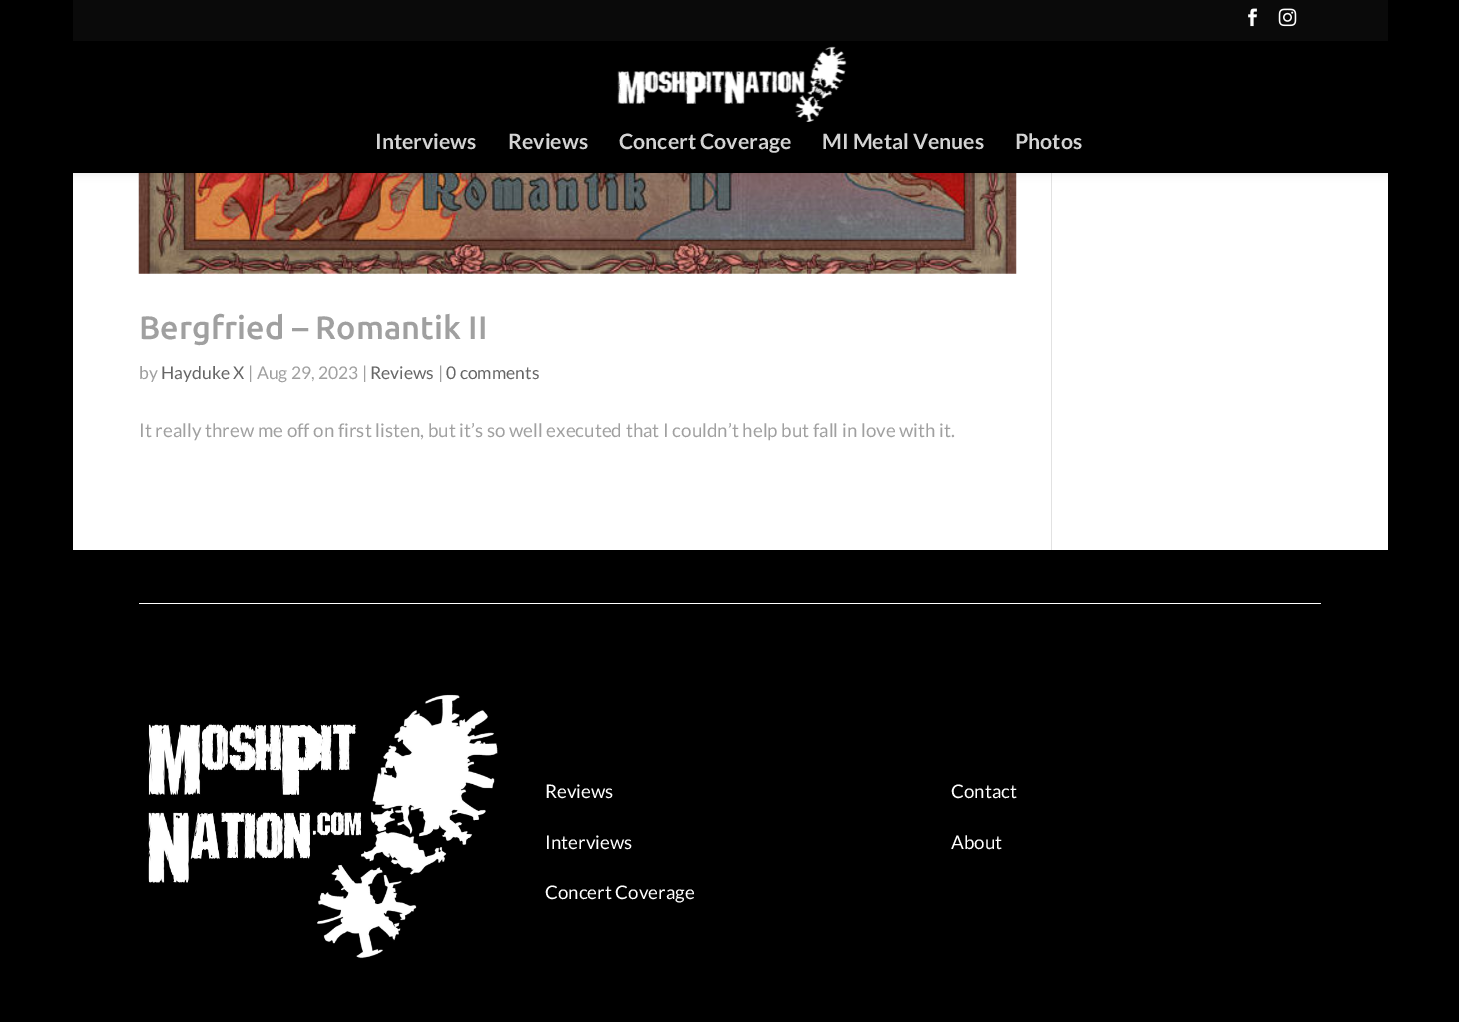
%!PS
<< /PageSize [1459 1022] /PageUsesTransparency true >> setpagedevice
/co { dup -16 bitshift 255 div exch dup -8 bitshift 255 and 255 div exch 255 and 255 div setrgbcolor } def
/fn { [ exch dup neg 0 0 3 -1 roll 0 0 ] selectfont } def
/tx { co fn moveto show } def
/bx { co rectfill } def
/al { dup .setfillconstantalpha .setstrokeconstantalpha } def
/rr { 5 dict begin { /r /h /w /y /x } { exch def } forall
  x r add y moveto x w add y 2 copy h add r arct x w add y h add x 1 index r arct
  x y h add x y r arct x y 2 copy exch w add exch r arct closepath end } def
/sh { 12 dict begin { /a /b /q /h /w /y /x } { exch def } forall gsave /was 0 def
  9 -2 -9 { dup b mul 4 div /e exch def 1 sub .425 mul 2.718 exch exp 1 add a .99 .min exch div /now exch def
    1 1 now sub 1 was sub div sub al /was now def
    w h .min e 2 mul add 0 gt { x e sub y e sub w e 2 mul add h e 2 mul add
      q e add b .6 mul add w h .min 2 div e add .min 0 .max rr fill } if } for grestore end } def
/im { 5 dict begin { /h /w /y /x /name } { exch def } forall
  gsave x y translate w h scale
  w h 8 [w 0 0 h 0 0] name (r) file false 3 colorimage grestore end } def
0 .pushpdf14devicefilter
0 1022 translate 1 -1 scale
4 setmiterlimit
0 0 1459 1022 16#000000 bx
73 173 1315 377 16#FFFFFF bx
(media/4.raw) 138 173 879 101 im
1051 173 1 377 16#E2E2E2 bx
16#000000 co
73 41 1315 132 0 4.5 .1 sh
73 0 1315 41 16#0A0A0A bx
(media/1.raw) 1248 8 9 19 im
(media/2.raw) 1278 8 19 19 im
(media/3.raw) 617 46 230 76 im
139 603 1182 1 16#FFFFFF bx
(media/5.raw) 148 694 350 265 im
(Interviews) 375 149 /Lato-Bold 21.25 16#D3D3D3 tx
(Reviews) 508 149 /Lato-Bold 21.25 16#D3D3D3 tx
(Concert Coverage) 619 149 /Lato-Bold 21.25 16#D3D3D3 tx
(MI Metal Venues) 822 149 /Lato-Bold 21.25 16#D3D3D3 tx
(Photos) 1015 149 /Lato-Bold 21.25 16#D3D3D3 tx
(Bergfried – Romantik II) 139 339 /Ubuntu-Medium 32.5 16#A0A0A0 tx
(by) 139 379 /Lato-Regular 17.5 16#A0A0A0 tx
(Hayduke X) 161 379 /Lato-Regular 17.5 16#666666 tx
(| Aug 29, 2023 |) 248 379 /Lato-Regular 17.5 16#A0A0A0 tx
(Reviews) 370 379 /Lato-Regular 17.5 16#666666 tx
(|) 438 379 /Lato-Regular 17.5 16#A0A0A0 tx
(0 comments) 446 379 /Lato-Regular 17.5 16#666666 tx
(It really threw me off on first listen, but it’s so well executed that I couldn’t help but fall in love with it.) 139 437 /Lato-Regular 18.75 16#A0A0A0 tx
(Reviews) 545 798 /Lato-Regular 18.75 16#FFFFFF tx
(Interviews) 545 849 /Lato-Regular 18.75 16#FFFFFF tx
(Concert Coverage) 545 899 /Lato-Regular 18.75 16#FFFFFF tx
(Contact) 951 798 /Lato-Regular 18.75 16#FFFFFF tx
(About) 951 849 /Lato-Regular 18.75 16#FFFFFF tx
.poppdf14devicefilter showpage
